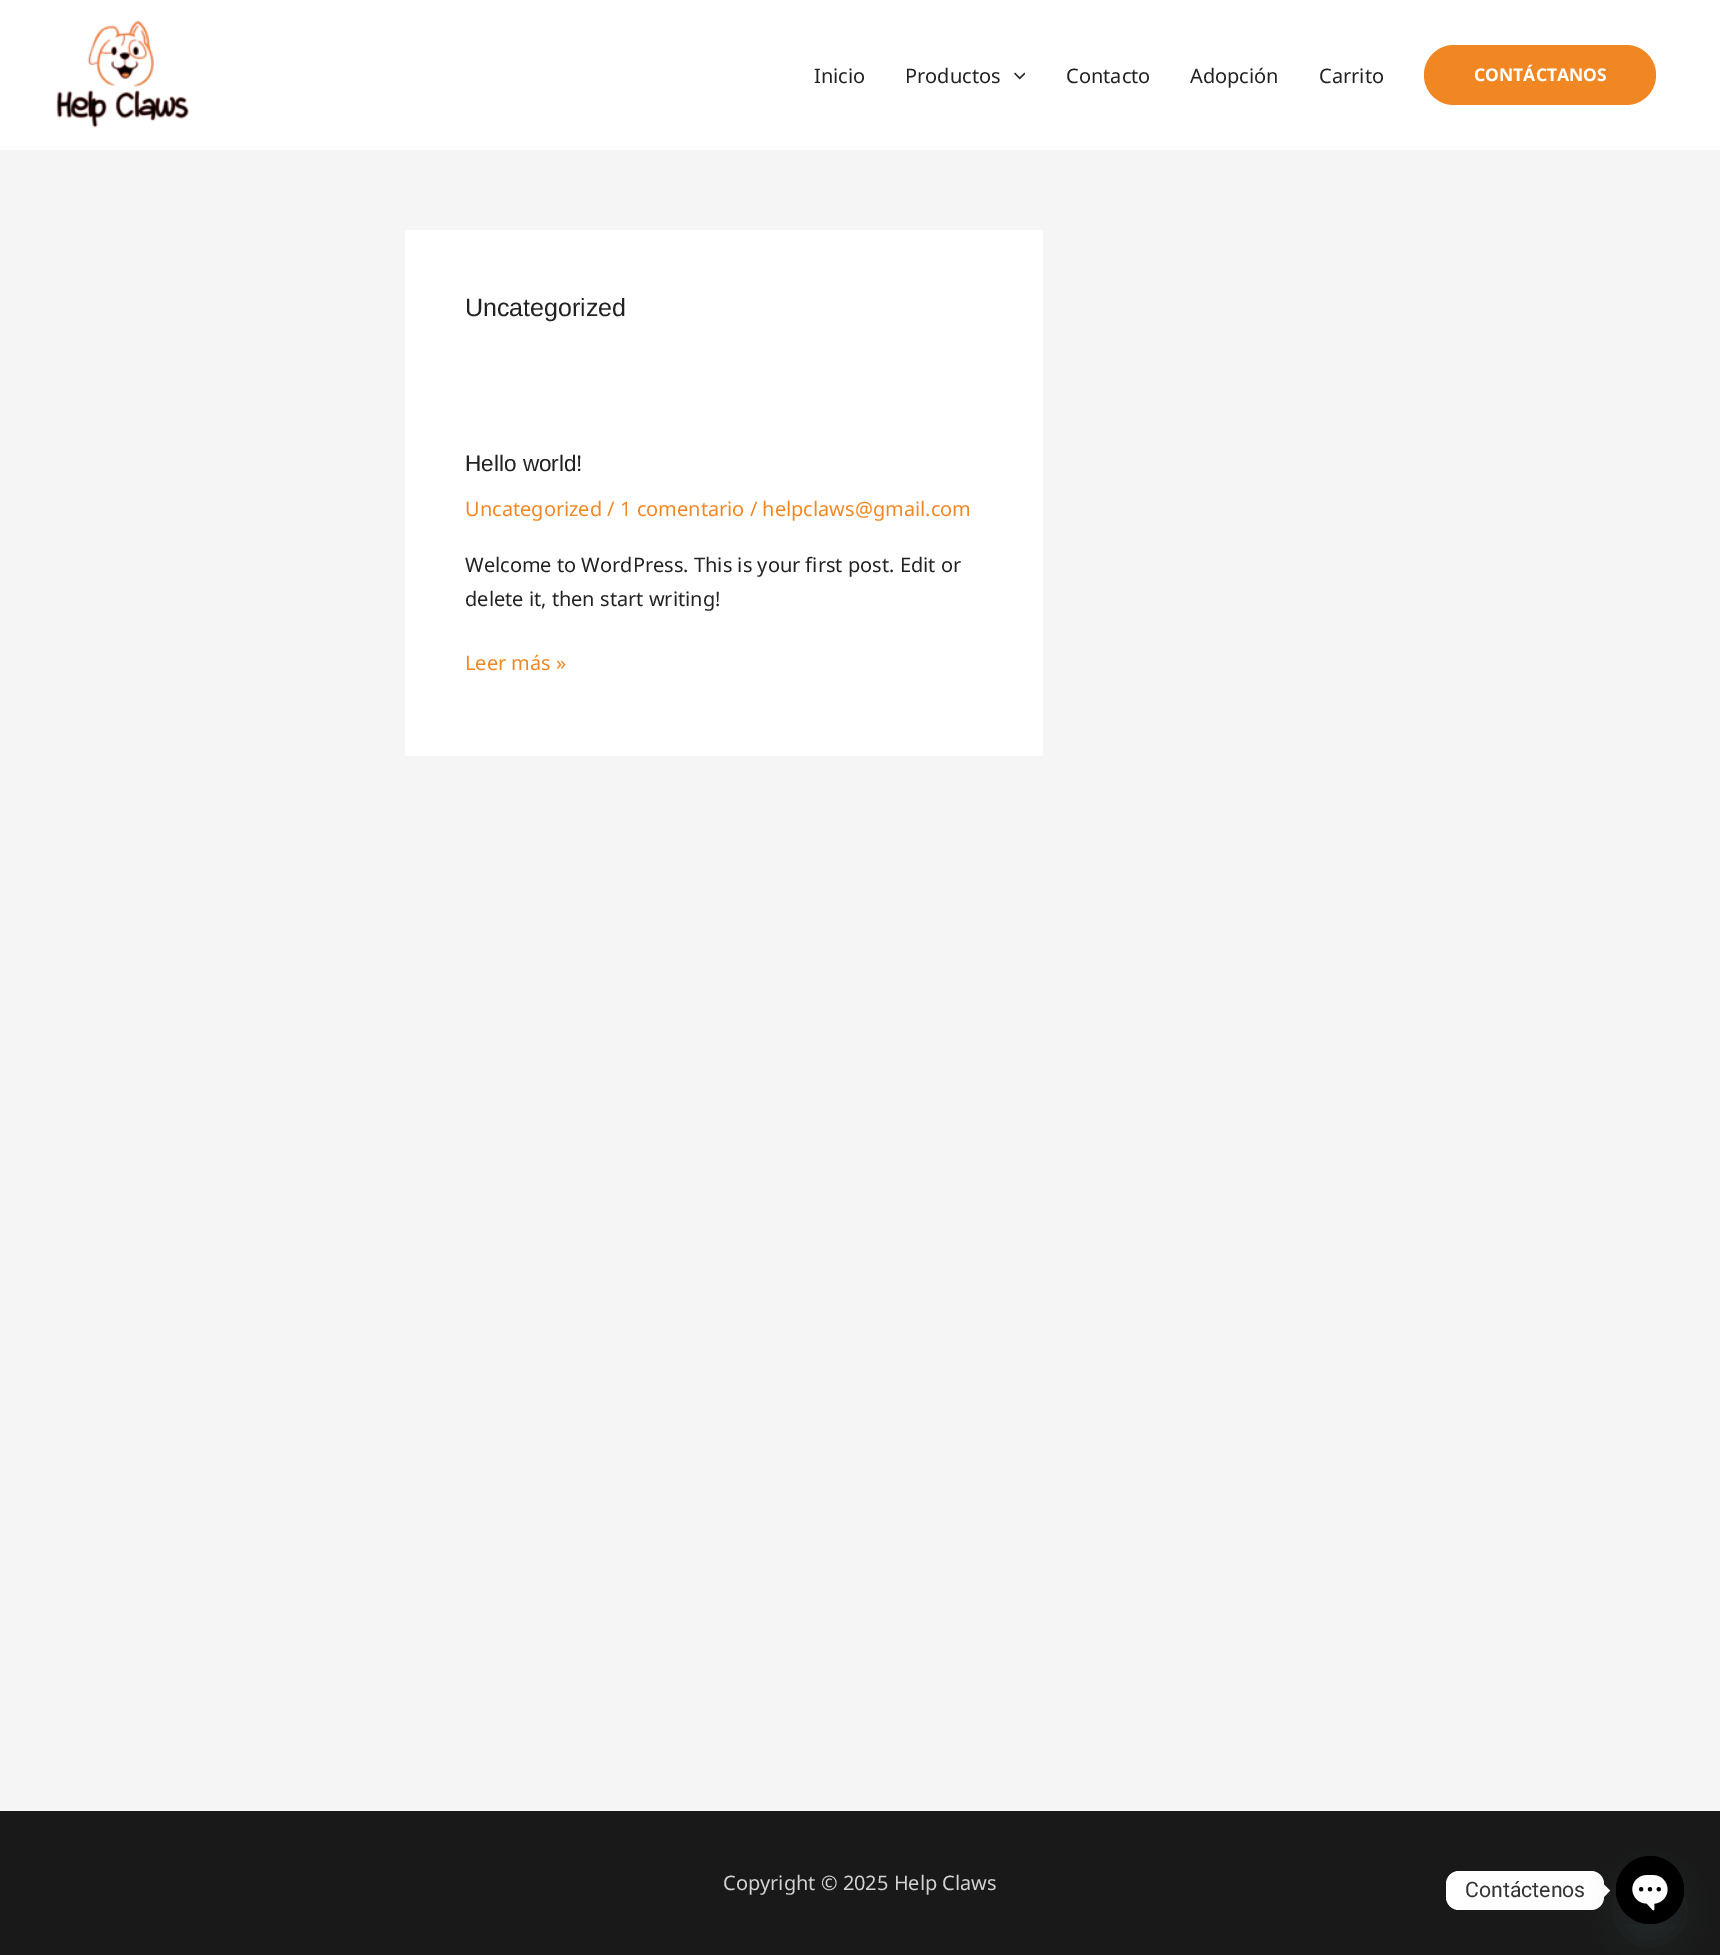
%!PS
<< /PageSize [1720 1955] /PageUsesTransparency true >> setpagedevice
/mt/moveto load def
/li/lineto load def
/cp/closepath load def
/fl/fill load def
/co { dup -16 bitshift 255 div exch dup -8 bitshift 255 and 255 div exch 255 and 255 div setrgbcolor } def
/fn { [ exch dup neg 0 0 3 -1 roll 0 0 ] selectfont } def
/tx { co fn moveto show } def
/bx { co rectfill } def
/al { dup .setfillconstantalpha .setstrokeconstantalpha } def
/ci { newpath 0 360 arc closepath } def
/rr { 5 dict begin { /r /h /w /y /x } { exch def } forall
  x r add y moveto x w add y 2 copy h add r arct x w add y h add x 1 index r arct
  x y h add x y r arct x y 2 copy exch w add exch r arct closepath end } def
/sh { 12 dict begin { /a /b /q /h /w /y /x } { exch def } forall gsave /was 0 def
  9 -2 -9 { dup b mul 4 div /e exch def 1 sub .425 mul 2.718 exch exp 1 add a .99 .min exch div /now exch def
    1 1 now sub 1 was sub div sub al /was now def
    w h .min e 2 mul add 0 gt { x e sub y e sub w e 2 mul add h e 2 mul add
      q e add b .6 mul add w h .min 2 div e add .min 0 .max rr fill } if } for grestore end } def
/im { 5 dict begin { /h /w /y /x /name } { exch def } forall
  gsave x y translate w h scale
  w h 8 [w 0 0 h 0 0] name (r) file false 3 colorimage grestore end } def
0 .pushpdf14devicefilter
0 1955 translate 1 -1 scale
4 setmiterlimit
0 0 1720 1955 16#F5F5F5 bx
0 0 1720 150 16#FFFFFF bx
(media/1.raw) 56 20 133 108 im
(media/2.raw) 1014 72 11 8 im
16#F18723 co
1424 45 232 60 30 rr fl
405 230 638 526 16#FFFFFF bx
0 1811 1720 144 16#191919 bx
16#FFFFFF co
1446 1871 158 39 13 rr fl
1604 1897 mt 1604 1884.5 li 1610 1890.5 li cp fl
16#49687E co
1616 1876 68 68 34 15 .16 sh
16#000000 co
1650 1890 34 ci fl
(media/3.raw) 1616 1875 68 49 im
(Inicio) 814 83 /NotoSans-Regular 20 16#222222 tx
(Productos) 905 83 /NotoSans-Regular 20 16#222222 tx
(Contacto) 1066 83 /NotoSans-Regular 20 16#222222 tx
(Adopción) 1190 83 /NotoSans-Regular 20 16#222222 tx
(Carrito) 1319 83 /NotoSans-Regular 20 16#222222 tx
(CONTÁCTANOS) 1474 81 /NotoSans-Bold 17.5 16#FFFFFF tx
(Uncategorized) 465 316 /LiberationSans-Regular 25 16#222222 tx
(Hello world!) 465 471 /LiberationSans-Regular 22.5 16#222222 tx
(Uncategorized / 1 comentario / helpclaws@gmail.com) 465 516 /NotoSans-Regular 20 16#F18723 tx
(Welcome to WordPress. This is your first post. Edit or) 465 572 /NotoSans-Regular 20 16#222222 tx
(delete it, then start writing!) 465 606 /NotoSans-Regular 20 16#222222 tx
(Leer más ») 465 670 /NotoSans-Regular 20 16#F18723 tx
(Copyright © 2025 Help Claws) 723 1890 /NotoSans-Regular 20 16#D3D3D3 tx
(Contáctenos) 1465 1897 /Roboto-Regular 21.25 16#333333 tx
.poppdf14devicefilter showpage
